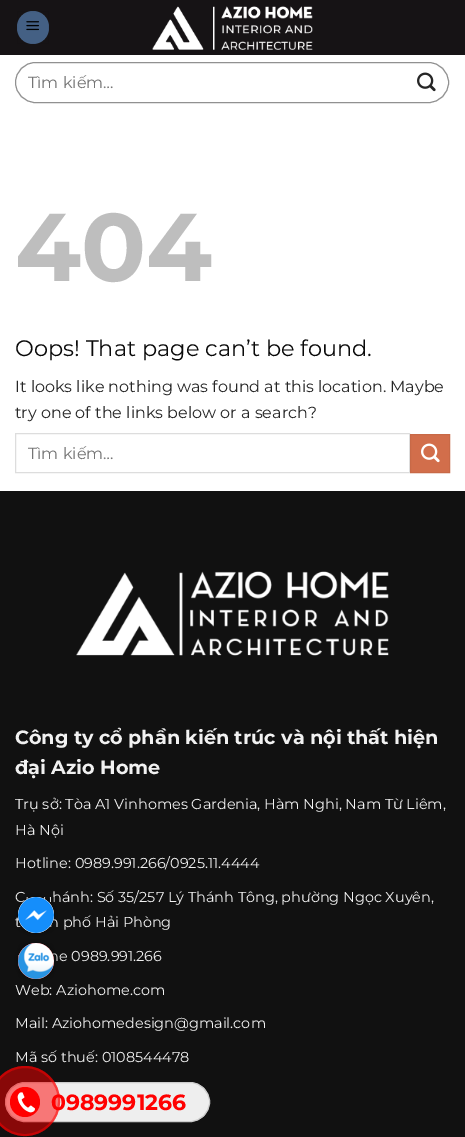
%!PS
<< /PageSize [465 1137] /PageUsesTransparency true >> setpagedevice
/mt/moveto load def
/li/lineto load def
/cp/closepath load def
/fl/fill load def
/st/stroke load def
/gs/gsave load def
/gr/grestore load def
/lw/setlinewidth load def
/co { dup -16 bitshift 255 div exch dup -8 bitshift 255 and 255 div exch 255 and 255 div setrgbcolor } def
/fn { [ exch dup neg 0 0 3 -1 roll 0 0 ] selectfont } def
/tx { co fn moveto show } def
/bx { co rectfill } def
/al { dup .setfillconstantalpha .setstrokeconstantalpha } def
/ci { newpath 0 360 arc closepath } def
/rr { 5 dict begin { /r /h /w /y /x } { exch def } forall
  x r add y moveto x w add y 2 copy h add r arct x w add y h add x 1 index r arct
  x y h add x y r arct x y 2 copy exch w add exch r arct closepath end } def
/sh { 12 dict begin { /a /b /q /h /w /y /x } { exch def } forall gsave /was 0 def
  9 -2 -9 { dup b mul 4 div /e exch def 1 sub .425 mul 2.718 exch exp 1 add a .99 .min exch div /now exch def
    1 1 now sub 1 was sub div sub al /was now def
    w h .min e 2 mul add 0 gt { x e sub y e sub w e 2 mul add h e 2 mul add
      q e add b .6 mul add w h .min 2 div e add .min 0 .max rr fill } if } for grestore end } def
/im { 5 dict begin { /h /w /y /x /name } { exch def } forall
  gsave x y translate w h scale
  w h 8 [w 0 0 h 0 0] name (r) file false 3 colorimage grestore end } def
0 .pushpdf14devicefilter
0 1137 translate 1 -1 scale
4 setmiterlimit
0 0 465 1137 16#FFFFFF bx
0 0 465 55 16#161315 bx
16#446084 co
17 11 32 33 16 rr fl
0.05 al
16#000000 co
17.5 11.5 31 32 rectstroke
1 al
(media/1.raw) 26 21 13 10 im
(media/2.raw) 152 6 161 44 im
16#919191 co
15.5 62.5 433 40 20 rr st
(media/3.raw) 417 72 19 20 im
16#DDDDDD co
15.5 433.5 394 39 rectstroke
16#D26E4B co
410.5 434.5 mt 449.5 434.5 li 449.5 472.5 li 410.5 472.5 li cp gs fl gr
16#C86947 co
st
(media/4.raw) 421 443 19 20 im
0 491 465 646 16#111111 bx
(media/5.raw) 76 571 313 85 im
16#000000 co
20 899 32 32 16 5 .7 sh
16#EEEEEE co
5.5 1082.5 204 39 19.5 rr gs fl gr
16#CCCCCC co
st
(Tìm kiếm…) 28 88 /Montserrat-Regular 16 16#757575 tx
(404) 15 281 /Montserrat-Bold 96 16#BEBEBE tx
(Oops! That page can’t be found.) 15 356 /Montserrat-Regular 22.4 16#0A0A0A tx
(It looks like nothing was found at this location. Maybe) 15 392 /Montserrat-Regular 16 16#262626 tx
(try one of the links below or a search?) 15 418 /Montserrat-Regular 16 16#262626 tx
(Tìm kiếm…) 28 459 /Montserrat-Regular 16 16#757575 tx
(Công ty cổ phần kiến trúc và nội thất hiện) 15 744 /Montserrat-Bold 19.2 16#F1F1F1 tx
(đại Azio Home) 15 774 /Montserrat-Bold 19.2 16#F1F1F1 tx
(Trụ sở: Tòa A1 Vinhomes Gardenia, Hàm Nghi, Nam Từ Liêm,) 15 809 /Montserrat-Regular 14.4 16#F1F1F1 tx
(Hà Nội) 15 835 /Montserrat-Regular 14.4 16#F1F1F1 tx
(Hotline: 0989.991.266/0925.11.4444) 15 868 /Montserrat-Regular 14.4 16#F1F1F1 tx
(C) 15 902 /Montserrat-Regular 14.4 16#F1F1F1 tx
(hánh: Số 35/257 Lý Thánh Tông, phường Ngọc Xuyên,) 52 902 /Montserrat-Regular 14.4 16#F1F1F1 tx
(t) 15 927 /Montserrat-Regular 14.4 16#F1F1F1 tx
(h phố Hải Phòng) 49 927 /Montserrat-Regular 14.4 16#F1F1F1 tx
(ne 0989.991.266) 49 961 /Montserrat-Regular 14.4 16#F1F1F1 tx
(Web: Aziohome.com) 15 995 /Montserrat-Regular 14.4 16#F1F1F1 tx
(Mail: Aziohomedesign@gmail.com) 15 1028 /Montserrat-Regular 14.4 16#F1F1F1 tx
(Mã số thuế: 0108544478) 15 1062 /Montserrat-Regular 14.4 16#F1F1F1 tx
(media/6.raw) 18 897 36 36 im
16#000000 co
20 945 32 32 16 5 .7 sh
(media/7.raw) 18 943 36 36 im
(0989991266) 51 1110 /Montserrat-Bold 22 16#FF0000 tx
0.5 al
25 1101 35 ci fl
2 lw
25 1101 34 ci st
1 al
25 1102 15 ci fl
(media/8.raw) 17 1092 18 21 im
.poppdf14devicefilter showpage
